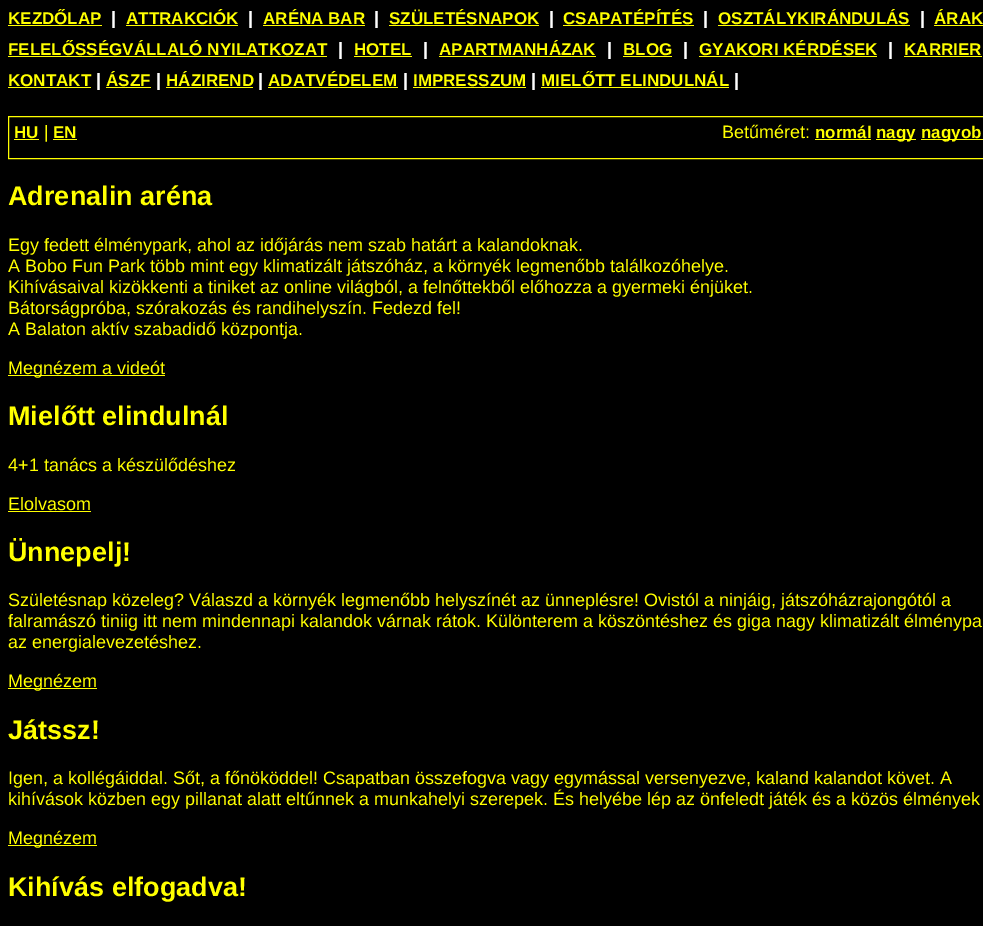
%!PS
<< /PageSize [983 926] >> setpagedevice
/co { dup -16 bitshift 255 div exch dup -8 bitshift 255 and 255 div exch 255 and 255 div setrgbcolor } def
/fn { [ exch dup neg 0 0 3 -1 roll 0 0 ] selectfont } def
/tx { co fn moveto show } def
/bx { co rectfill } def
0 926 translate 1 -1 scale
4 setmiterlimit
0 0 983 926 16#000000 bx
8 25 94 1 16#FFFF00 bx
126 25 112 1 16#FFFF00 bx
263 25 102 1 16#FFFF00 bx
389 25 150 1 16#FFFF00 bx
563 25 131 1 16#FFFF00 bx
718 25 192 1 16#FFFF00 bx
934 25 49 1 16#FFFF00 bx
8 56 319 1 16#FFFF00 bx
354 56 58 1 16#FFFF00 bx
439 56 157 1 16#FFFF00 bx
623 56 49 1 16#FFFF00 bx
699 56 178 1 16#FFFF00 bx
904 56 78 1 16#FFFF00 bx
8 87 83 1 16#FFFF00 bx
106 87 45 1 16#FFFF00 bx
166 87 87 1 16#FFFF00 bx
268 87 130 1 16#FFFF00 bx
413 87 113 1 16#FFFF00 bx
541 87 188 1 16#FFFF00 bx
8.5 116.5 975 42 rectstroke
14 139 25 1 16#FFFF00 bx
53 139 24 1 16#FFFF00 bx
815 139 56 1 16#FFFF00 bx
876 139 40 1 16#FFFF00 bx
921 139 62 1 16#FFFF00 bx
8 375 157 1 16#FFFF00 bx
8 511 83 1 16#FFFF00 bx
8 688 89 1 16#FFFF00 bx
8 845 89 1 16#FFFF00 bx
(KEZDŐLAP) 8 24 /LiberationSans-Bold 17 16#FFFF00 tx
(|) 111 24 /LiberationSans-Bold 18 16#FFFFFF tx
(ATTRAKCIÓK) 126 24 /LiberationSans-Bold 17 16#FFFF00 tx
(|) 248 24 /LiberationSans-Bold 18 16#FFFFFF tx
(ARÉNA BAR) 263 24 /LiberationSans-Bold 17 16#FFFF00 tx
(|) 374 24 /LiberationSans-Bold 18 16#FFFFFF tx
(SZÜLETÉSNAPOK) 389 24 /LiberationSans-Bold 17 16#FFFF00 tx
(|) 549 24 /LiberationSans-Bold 18 16#FFFFFF tx
(CSAPATÉPÍTÉS) 563 24 /LiberationSans-Bold 17 16#FFFF00 tx
(|) 703 24 /LiberationSans-Bold 18 16#FFFFFF tx
(OSZTÁLYKIRÁNDULÁS) 718 24 /LiberationSans-Bold 17 16#FFFF00 tx
(|) 920 24 /LiberationSans-Bold 18 16#FFFFFF tx
(ÁRAK) 934 24 /LiberationSans-Bold 17 16#FFFF00 tx
(FELELŐSSÉGVÁLLALÓ NYILATKOZAT) 8 55 /LiberationSans-Bold 17 16#FFFF00 tx
(|) 338 55 /LiberationSans-Bold 18 16#FFFFFF tx
(HOTEL) 354 55 /LiberationSans-Bold 17 16#FFFF00 tx
(|) 423 55 /LiberationSans-Bold 18 16#FFFFFF tx
(APARTMANHÁZAK) 439 55 /LiberationSans-Bold 17 16#FFFF00 tx
(|) 607 55 /LiberationSans-Bold 18 16#FFFFFF tx
(BLOG) 623 55 /LiberationSans-Bold 17 16#FFFF00 tx
(|) 683 55 /LiberationSans-Bold 18 16#FFFFFF tx
(GYAKORI KÉRDÉSEK) 699 55 /LiberationSans-Bold 17 16#FFFF00 tx
(|) 888 55 /LiberationSans-Bold 18 16#FFFFFF tx
(KARRIER) 904 55 /LiberationSans-Bold 17 16#FFFF00 tx
(KONTAKT) 8 86 /LiberationSans-Bold 17 16#FFFF00 tx
(|) 96 86 /LiberationSans-Bold 18 16#FFFFFF tx
(ÁSZF) 106 86 /LiberationSans-Bold 17 16#FFFF00 tx
(|) 156 86 /LiberationSans-Bold 18 16#FFFFFF tx
(HÁZIREND) 166 86 /LiberationSans-Bold 17 16#FFFF00 tx
(|) 258 86 /LiberationSans-Bold 18 16#FFFFFF tx
(ADATVÉDELEM) 268 86 /LiberationSans-Bold 17 16#FFFF00 tx
(|) 403 86 /LiberationSans-Bold 18 16#FFFFFF tx
(IMPRESSZUM) 413 86 /LiberationSans-Bold 17 16#FFFF00 tx
(|) 531 86 /LiberationSans-Bold 18 16#FFFFFF tx
(MIELŐTT ELINDULNÁL) 541 86 /LiberationSans-Bold 17 16#FFFF00 tx
(|) 734 86 /LiberationSans-Bold 18 16#FFFFFF tx
(HU) 14 138 /LiberationSans-Bold 17 16#FFFF00 tx
(|) 44 138 /LiberationSans-Regular 18 16#FFFF00 tx
(EN) 53 138 /LiberationSans-Bold 17 16#FFFF00 tx
(Betűméret:) 722 138 /LiberationSans-Regular 18 16#FFFF00 tx
(normál) 815 138 /LiberationSans-Bold 17 16#FFFF00 tx
(nagy) 876 138 /LiberationSans-Bold 17 16#FFFF00 tx
(nagyob) 921 138 /LiberationSans-Bold 17 16#FFFF00 tx
(Adrenalin aréna) 8 205 /LiberationSans-Bold 27 16#FFFF00 tx
(Egy fedett élménypark, ahol az időjárás nem szab határt a kalandoknak.) 8 251 /LiberationSans-Regular 18 16#FFFF00 tx
(A Bobo Fun Park több mint egy klimatizált játszóház, a környék legmenőbb találkozóhelye.) 8 272 /LiberationSans-Regular 18 16#FFFF00 tx
(Kihívásaival kizökkenti a tiniket az online világból, a felnőttekből előhozza a gyermeki énjüket.) 8 293 /LiberationSans-Regular 18 16#FFFF00 tx
(Bátorságpróba, szórakozás és randihelyszín. Fedezd fel!) 8 314 /LiberationSans-Regular 18 16#FFFF00 tx
(A Balaton aktív szabadidő központja.) 8 335 /LiberationSans-Regular 18 16#FFFF00 tx
(Megnézem a videót) 8 374 /LiberationSans-Regular 18 16#FFFF00 tx
(Mielőtt elindulnál) 8 425 /LiberationSans-Bold 27 16#FFFF00 tx
(4+1 tanács a készülődéshez) 8 471 /LiberationSans-Regular 18 16#FFFF00 tx
(Elolvasom) 8 510 /LiberationSans-Regular 18 16#FFFF00 tx
(Ünnepelj!) 8 561 /LiberationSans-Bold 27 16#FFFF00 tx
(Születésnap közeleg? Válaszd a környék legmenőbb helyszínét az ünneplésre! Ovistól a ninjáig, játszóházrajongótól a) 8 606 /LiberationSans-Regular 18 16#FFFF00 tx
(falramászó tiniig itt nem mindennapi kalandok várnak rátok. Különterem a köszöntéshez és giga nagy klimatizált élménypa) 8 627 /LiberationSans-Regular 18 16#FFFF00 tx
(az energialevezetéshez.) 8 648 /LiberationSans-Regular 18 16#FFFF00 tx
(Megnézem) 8 687 /LiberationSans-Regular 18 16#FFFF00 tx
(Játssz!) 8 739 /LiberationSans-Bold 27 16#FFFF00 tx
(Igen, a kollégáiddal. Sőt, a főnököddel! Csapatban összefogva vagy egymással versenyezve, kaland kalandot követ. A) 8 784 /LiberationSans-Regular 18 16#FFFF00 tx
(kihívások közben egy pillanat alatt eltűnnek a munkahelyi szerepek. És helyébe lép az önfeledt játék és a közös élmények) 8 805 /LiberationSans-Regular 18 16#FFFF00 tx
(Megnézem) 8 844 /LiberationSans-Regular 18 16#FFFF00 tx
(Kihívás elfogadva!) 8 896 /LiberationSans-Bold 27 16#FFFF00 tx
showpage
